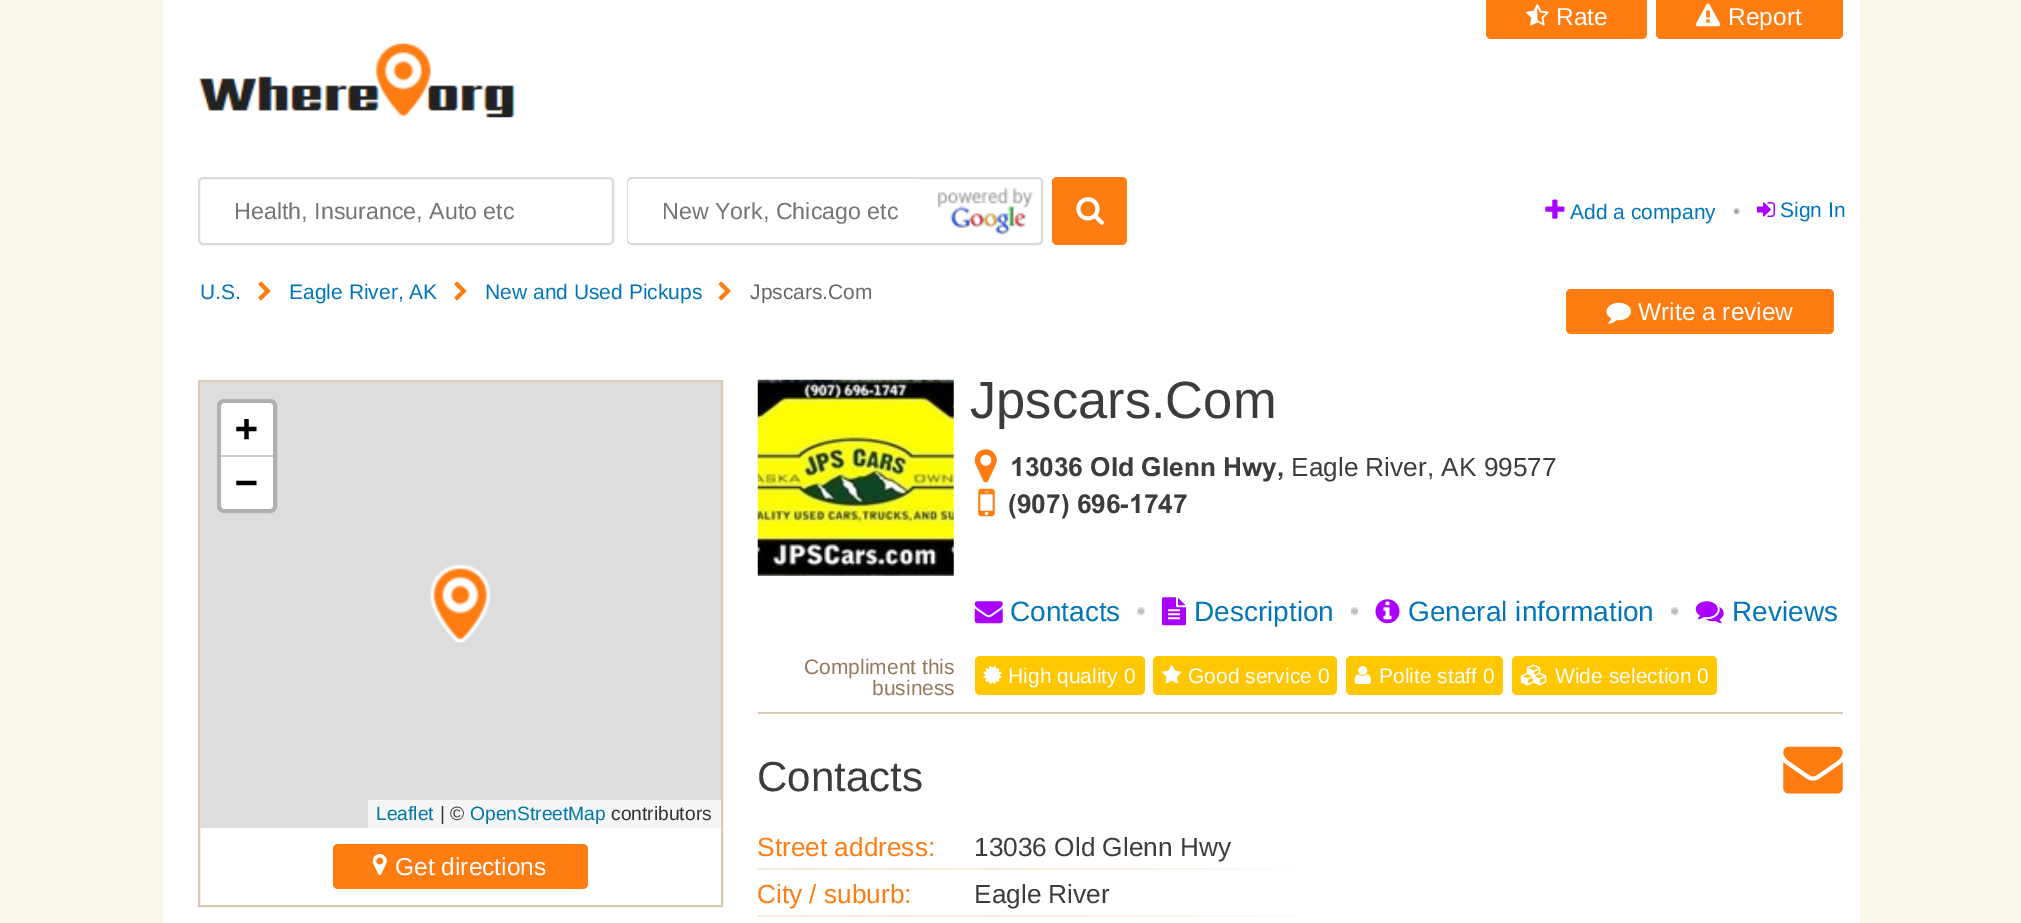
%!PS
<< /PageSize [2021 923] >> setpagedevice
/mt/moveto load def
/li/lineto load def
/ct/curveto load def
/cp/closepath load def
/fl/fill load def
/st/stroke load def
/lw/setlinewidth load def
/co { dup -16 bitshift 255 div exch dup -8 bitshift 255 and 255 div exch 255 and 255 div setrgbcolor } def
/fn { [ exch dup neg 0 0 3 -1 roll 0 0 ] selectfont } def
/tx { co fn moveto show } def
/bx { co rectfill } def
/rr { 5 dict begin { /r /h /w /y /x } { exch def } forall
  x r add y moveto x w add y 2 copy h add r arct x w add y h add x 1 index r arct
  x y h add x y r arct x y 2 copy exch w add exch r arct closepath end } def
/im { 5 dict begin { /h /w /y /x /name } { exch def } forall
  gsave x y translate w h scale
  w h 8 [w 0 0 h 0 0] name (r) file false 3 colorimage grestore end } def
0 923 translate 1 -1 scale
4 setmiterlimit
0 0 2021 923 16#F8F7E9 bx
163 0 1697 923 16#FFFFFF bx
16#FF7C11 co
1486 -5 161 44 5 rr fl
(media/1.raw) 1526 4 23 22 im
1656 -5 187 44 5 rr fl
(media/2.raw) 1695 3 26 24 im
(media/3.raw) 199 43 316 75 im
16#DBDBDB co
2 lw
199 178 414 66 4 rr st
628 178 414 66 4 rr st
16#FFFFFF co
628 179 291 64 5 rr fl
(media/4.raw) 938 187 95 48 im
16#FF7C11 co
1052 177 75 68 5 rr fl
(media/5.raw) 1076 197 28 28 im
(media/6.raw) 1545 199 20 20 im
(media/7.raw) 1732 208 8 7 im
(media/8.raw) 1757 202 18 15 im
(media/9.raw) 258 281 13 20 im
(media/9.raw) 454 281 13 20 im
(media/10.raw) 718 281 13 20 im
1566 289 268 45 5 rr fl
(media/11.raw) 1606 302 25 22 im
16#D9C8B2 co
199 381 523 525 rectstroke
200 382 521 446 16#DDDDDD bx
16#B1B1B1 co
4 lw
219 401 56 110 5 rr st
16#FFFFFF co
225 403 mt 269 403 li 271 403 273 405 273 407 ct 273 457 li 221 457 li 221 407 li 221 405 223 403 225 403 ct cp fl
221 455 52 2 16#CCCCCC bx
16#FFFFFF co
221 457 mt 273 457 li 273 505 li 273 507 271 509 269 509 ct 225 509 li 223 509 221 507 221 505 ct cp fl
368 800 353 28 16#F5F5F5 bx
(media/12.raw) 430 565 61 78 im
16#FF7C11 co
333 844 255 45 5 rr fl
(media/13.raw) 372 854 15 21 im
758 712 1085 2 16#D9C8B2 bx
(media/14.raw) 757 379 197 197 im
(media/15.raw) 974 449 23 34 im
(media/16.raw) 978 488 17 29 im
(media/17.raw) 974 601 29 23 im
(media/18.raw) 1137 607 8 9 im
(media/19.raw) 1162 597 24 29 im
(media/20.raw) 1351 607 7 9 im
(media/21.raw) 1375 599 25 25 im
(media/22.raw) 1671 607 8 9 im
(media/23.raw) 1695 601 29 23 im
16#FFC700 co
975 656 170 39 5 rr fl
(media/24.raw) 983 666 19 18 im
1153 656 184 39 5 rr fl
(media/25.raw) 1162 664 20 20 im
1346 656 157 39 5 rr fl
(media/26.raw) 1354 666 17 18 im
1512 656 205 39 5 rr fl
(media/27.raw) 1520 664 27 22 im
(media/28.raw) 1783 746 60 48 im
(media/29.raw) 757 868 543 2 im
(media/30.raw) 757 915 543 2 im
(Rate) 1556 25 /LiberationSans-Regular 24.5 16#FFFFFF tx
(Report) 1728 25 /LiberationSans-Regular 24.5 16#FFFFFF tx
(Health, Insurance, Auto etc) 234 219 /LiberationSans-Regular 23.25 16#757575 tx
(New York, Chicago etc) 662 219 /LiberationSans-Regular 23.25 16#757575 tx
(Add a company) 1570 219 /LiberationSans-Regular 21 16#0075B9 tx
(Sign In) 1780 217 /LiberationSans-Regular 21 16#0075B9 tx
(U.S.) 200 299 /LiberationSans-Regular 21 16#0075B9 tx
(Eagle River, AK) 289 299 /LiberationSans-Regular 21 16#0075B9 tx
(New and Used Pickups) 485 299 /LiberationSans-Regular 21 16#0075B9 tx
(Jpscars.Com) 750 299 /LiberationSans-Regular 21 16#6A6A6A tx
(Write a review) 1638 320 /LiberationSans-Regular 24.5 16#FFFFFF tx
(+) 235 441 /DejaVuSansMono-Bold 38 16#000000 tx
(−) 235 495 /DejaVuSansMono-Bold 38 16#000000 tx
(Leaflet) 376 820 /LiberationSans-Regular 19.25 16#0078A8 tx
(| ©) 440 820 /LiberationSans-Regular 19.25 16#333333 tx
(OpenStreetMap) 470 820 /LiberationSans-Regular 19.25 16#0078A8 tx
(contributors) 611 820 /LiberationSans-Regular 19.25 16#333333 tx
(Get directions) 395 875 /LiberationSans-Regular 24.5 16#FFFFFF tx
(Jpscars.Com) 970 418 /LiberationSans-Regular 52.5 16#3C3C3C tx
(13036 Old Glenn Hwy,) 1010 476 /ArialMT-Bold 26.25 16#3C3C3C tx
(Eagle River, AK 99577) 1291 476 /LiberationSans-Regular 26.25 16#3C3C3C tx
(\(907\) 696-1747) 1008 513 /ArialMT-Bold 26.25 16#3C3C3C tx
(Contacts) 1010 621 /LiberationSans-Regular 28 16#0075B9 tx
(Description) 1194 621 /LiberationSans-Regular 28 16#0075B9 tx
(General information) 1408 621 /LiberationSans-Regular 28 16#0075B9 tx
(Reviews) 1732 621 /LiberationSans-Regular 28 16#0075B9 tx
(Compliment this) 804 674 /LiberationSans-Regular 21 16#95795B tx
(business) 872 695 /LiberationSans-Regular 21 16#95795B tx
(High quality 0) 1008 683 /LiberationSans-Regular 21 16#FFFFFF tx
(Good service 0) 1188 683 /LiberationSans-Regular 21 16#FFFFFF tx
(Polite staff 0) 1379 683 /LiberationSans-Regular 21 16#FFFFFF tx
(Wide selection 0) 1555 683 /LiberationSans-Regular 21 16#FFFFFF tx
(Contacts) 757 791 /LiberationSans-Regular 42 16#3C3C3C tx
(Street address:) 757 856 /LiberationSans-Regular 26.25 16#FF7C11 tx
(13036 Old Glenn Hwy) 974 856 /LiberationSans-Regular 26.25 16#3C3C3C tx
(City / suburb:) 757 903 /LiberationSans-Regular 26.25 16#FF7C11 tx
(Eagle River) 974 903 /LiberationSans-Regular 26.25 16#3C3C3C tx
showpage
